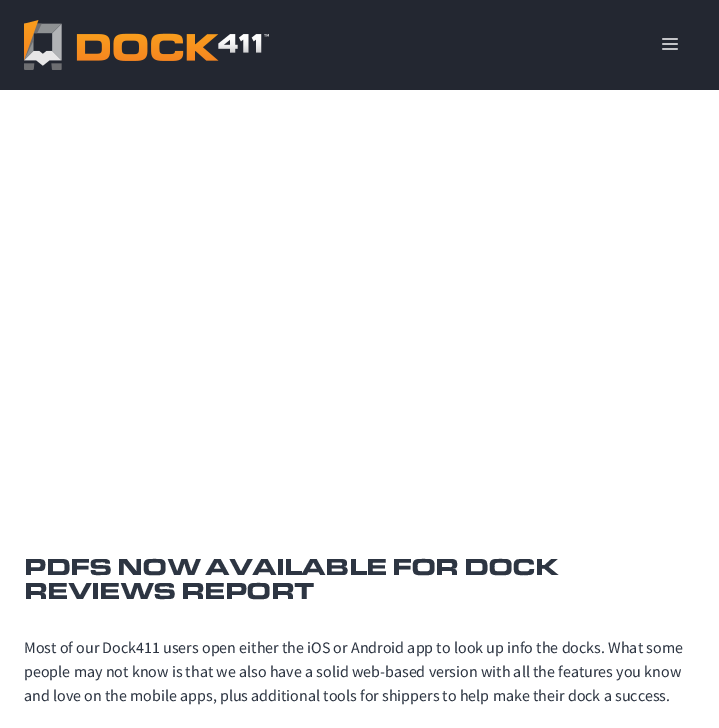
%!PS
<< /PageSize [719 728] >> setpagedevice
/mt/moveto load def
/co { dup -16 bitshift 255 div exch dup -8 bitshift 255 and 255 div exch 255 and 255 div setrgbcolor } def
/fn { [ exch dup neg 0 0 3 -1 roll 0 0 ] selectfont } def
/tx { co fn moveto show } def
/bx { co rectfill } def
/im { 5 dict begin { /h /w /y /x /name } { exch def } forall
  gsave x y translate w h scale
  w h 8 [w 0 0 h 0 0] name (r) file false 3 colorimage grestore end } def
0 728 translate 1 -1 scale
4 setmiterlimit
0 0 719 728 16#FFFFFF bx
0 0 719 90 16#232731 bx
(media/1.raw) 24 20 245 50 im
(media/2.raw) 662 38 16 12 im
/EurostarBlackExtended-Black 24 fn
16#2D3542 co
24 575 mt -.95 0 (PDFS NOW AVAILABLE FOR DOCK) ashow
24 599 mt -.95 0 (REVIEWS REPORT) ashow
(Most of our Dock411 users open either the iOS or Android app to look up info the docks. What some) 24 653 /SourceSansPro-Regular 16 16#2D3542 tx
(people may not know is that we also have a solid web-based version with all the features you know) 24 677 /SourceSansPro-Regular 16 16#2D3542 tx
(and love on the mobile apps, plus additional tools for shippers to help make their dock a success.) 24 701 /SourceSansPro-Regular 16 16#2D3542 tx
showpage
